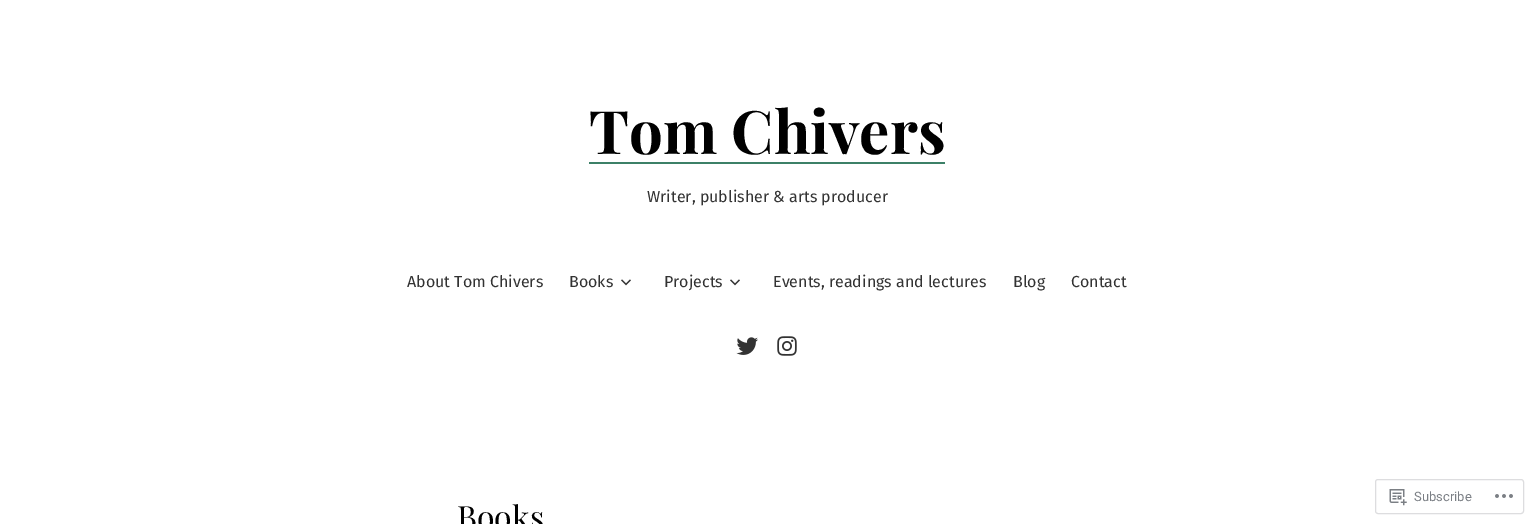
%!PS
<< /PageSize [1534 524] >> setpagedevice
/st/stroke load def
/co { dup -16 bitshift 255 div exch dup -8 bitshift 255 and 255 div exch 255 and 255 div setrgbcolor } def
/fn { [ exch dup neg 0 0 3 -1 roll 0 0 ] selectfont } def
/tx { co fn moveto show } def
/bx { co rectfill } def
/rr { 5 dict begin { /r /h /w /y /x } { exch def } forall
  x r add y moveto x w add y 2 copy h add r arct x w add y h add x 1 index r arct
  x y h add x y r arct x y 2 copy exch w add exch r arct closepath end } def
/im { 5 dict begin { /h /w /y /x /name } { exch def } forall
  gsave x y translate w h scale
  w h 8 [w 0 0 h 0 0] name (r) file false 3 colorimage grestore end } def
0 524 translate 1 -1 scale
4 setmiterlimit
0 0 1534 524 16#FFFFFF bx
589 162 356 2 16#3C8067 bx
(media/1.raw) 621 279 10 7 im
(media/1.raw) 730 279 10 7 im
(media/2.raw) 736 337 22 18 im
(media/3.raw) 777 336 20 20 im
16#DDDDDF co
1375.5 479.5 148 34 2.5 rr st
(media/4.raw) 1389 489 18 17 im
(media/5.raw) 1495 494 18 4 im
(Tom Chivers) 589 154 /PlayfairDisplay-Bold 60 16#000000 tx
(Writer, publisher & arts producer) 647 202 /FiraSans-Regular 16 16#333333 tx
(About Tom Chivers) 407 287 /FiraSans-Regular 16 16#333333 tx
(Books) 569 287 /FiraSans-Regular 16 16#333333 tx
(Projects) 664 287 /FiraSans-Regular 16 16#333333 tx
(Events, readings and lectures) 773 287 /FiraSans-Regular 16 16#333333 tx
(Blog) 1013 287 /FiraSans-Regular 16 16#333333 tx
(Contact) 1071 287 /FiraSans-Regular 16 16#333333 tx
(Books) 457 529 /PlayfairDisplay-Regular 32 16#000000 tx
(Subscribe) 1414 501 /Roboto-Regular 13 16#7B7F85 tx
showpage
